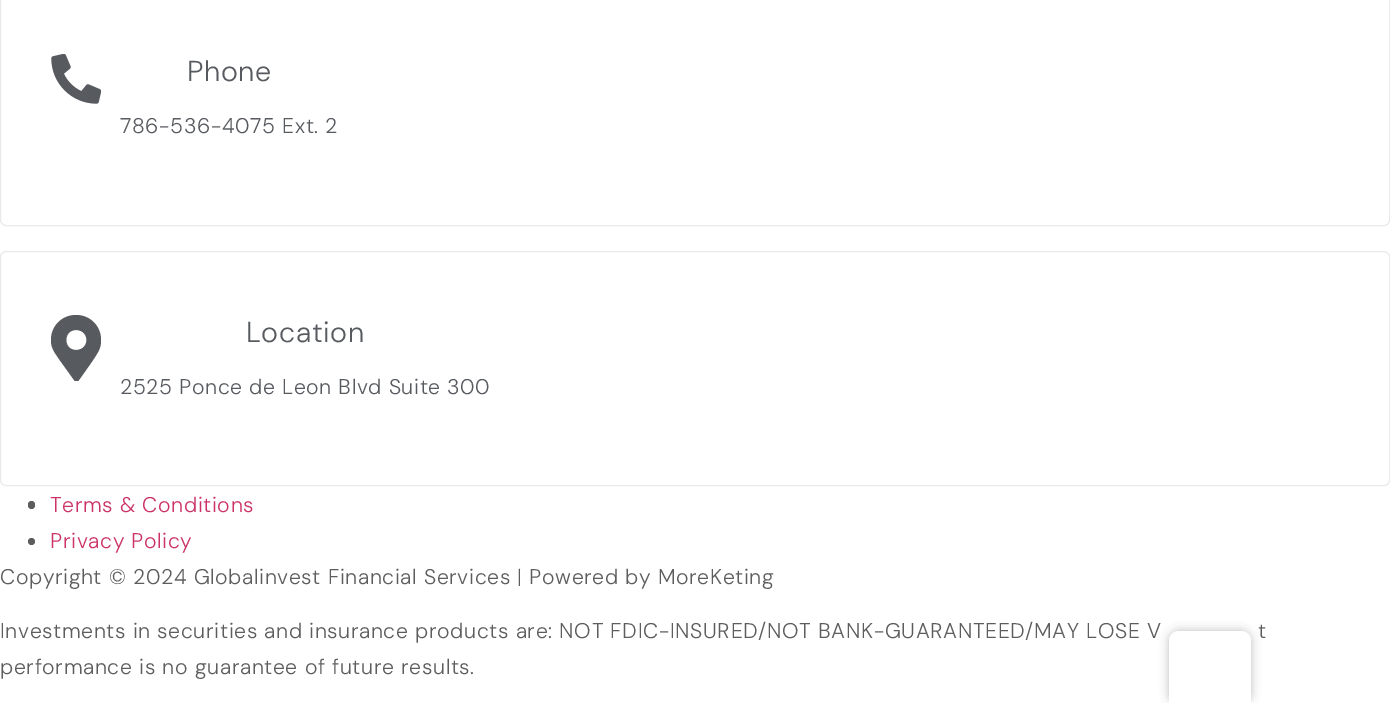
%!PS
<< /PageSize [1390 703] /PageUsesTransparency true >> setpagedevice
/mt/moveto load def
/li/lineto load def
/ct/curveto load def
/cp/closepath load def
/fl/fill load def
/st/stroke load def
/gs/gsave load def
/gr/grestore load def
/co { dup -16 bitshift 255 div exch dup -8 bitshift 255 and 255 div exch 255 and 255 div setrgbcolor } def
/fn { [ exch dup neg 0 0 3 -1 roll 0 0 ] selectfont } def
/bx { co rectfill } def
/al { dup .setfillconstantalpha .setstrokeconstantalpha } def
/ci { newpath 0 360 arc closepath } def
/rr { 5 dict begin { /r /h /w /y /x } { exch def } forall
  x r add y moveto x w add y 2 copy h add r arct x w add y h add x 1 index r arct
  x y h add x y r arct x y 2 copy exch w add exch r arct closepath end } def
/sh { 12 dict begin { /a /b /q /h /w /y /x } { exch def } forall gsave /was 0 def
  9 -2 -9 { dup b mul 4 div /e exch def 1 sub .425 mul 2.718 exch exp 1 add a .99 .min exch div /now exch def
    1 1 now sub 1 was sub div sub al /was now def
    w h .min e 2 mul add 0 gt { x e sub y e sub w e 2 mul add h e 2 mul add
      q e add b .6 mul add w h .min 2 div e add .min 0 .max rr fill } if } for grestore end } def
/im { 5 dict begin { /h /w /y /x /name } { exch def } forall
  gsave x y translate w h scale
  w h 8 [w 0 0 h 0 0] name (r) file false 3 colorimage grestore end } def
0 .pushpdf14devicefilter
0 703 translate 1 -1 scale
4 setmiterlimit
0 0 1390 703 16#FFFFFF bx
16#EAEAEB co
.5 -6.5 1389 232 5.5 rr st
(media/1.raw) 51 54 50 50 im
.5 251.5 1389 234 5.5 rr st
gs
51 315 50 66 rectclip
16#575A5F co
74 380 mt 55 353 51 350 51 340 ct 51 326 62 315 76 315 ct 90 315 101 326 101 340 ct 101 350 98 353 79 380 ct 78 382 75 382 74 380 ct cp 76 350 mt 90 350 90 330 76 330 ct 63 330 63 350 76 350 ct cp fl
gr
16#5D5D5D co
28 501 7 8 3.5 rr fl
31.5 541.5 3.5 ci fl
16#000000 co
1169 631 82 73 10 5 .25 sh
16#FFFFFF co
1179 631 mt 1241 631 li 1246.5 631 1251 635.5 1251 641 ct 1251 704 li 1169 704 li 1169 641 li 1169 635.5 1173.5 631 1179 631 ct cp fl
/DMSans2-Light 28.75 fn
16#575A5F co
187 81 mt .62 0 (Phone) ashow
/DMSans-Light 21.25 fn
120 133 mt .62 0 (786-536-4075 Ext. 2) ashow
/DMSans2-Light 28.75 fn
246 342 mt .62 0 (Location) ashow
/DMSans-Light 21.25 fn
120 394 mt .62 0 (2525 Ponce de Leon Blvd Suite 300) ashow
16#CC3366 co
50 512 mt .62 0 (Terms & Conditions) ashow
50 548 mt .62 0 (Privacy Policy) ashow
16#5D5D5D co
0 584 mt .1 0 32 .62 0 (Copyright © 2024 Globalinvest Financial Services | Powered by MoreKeting) awidthshow
0 638 mt .1 0 32 .62 0 (Investments in securities and insurance products are: NOT FDIC-INSURED/NOT BANK-GUARANTEED/MAY LOSE V) awidthshow
1258 638 mt .1 0 32 .62 0 (t) awidthshow
0 674 mt .25 0 32 .62 0 (performance is no guarantee of future results.) awidthshow
.poppdf14devicefilter showpage
